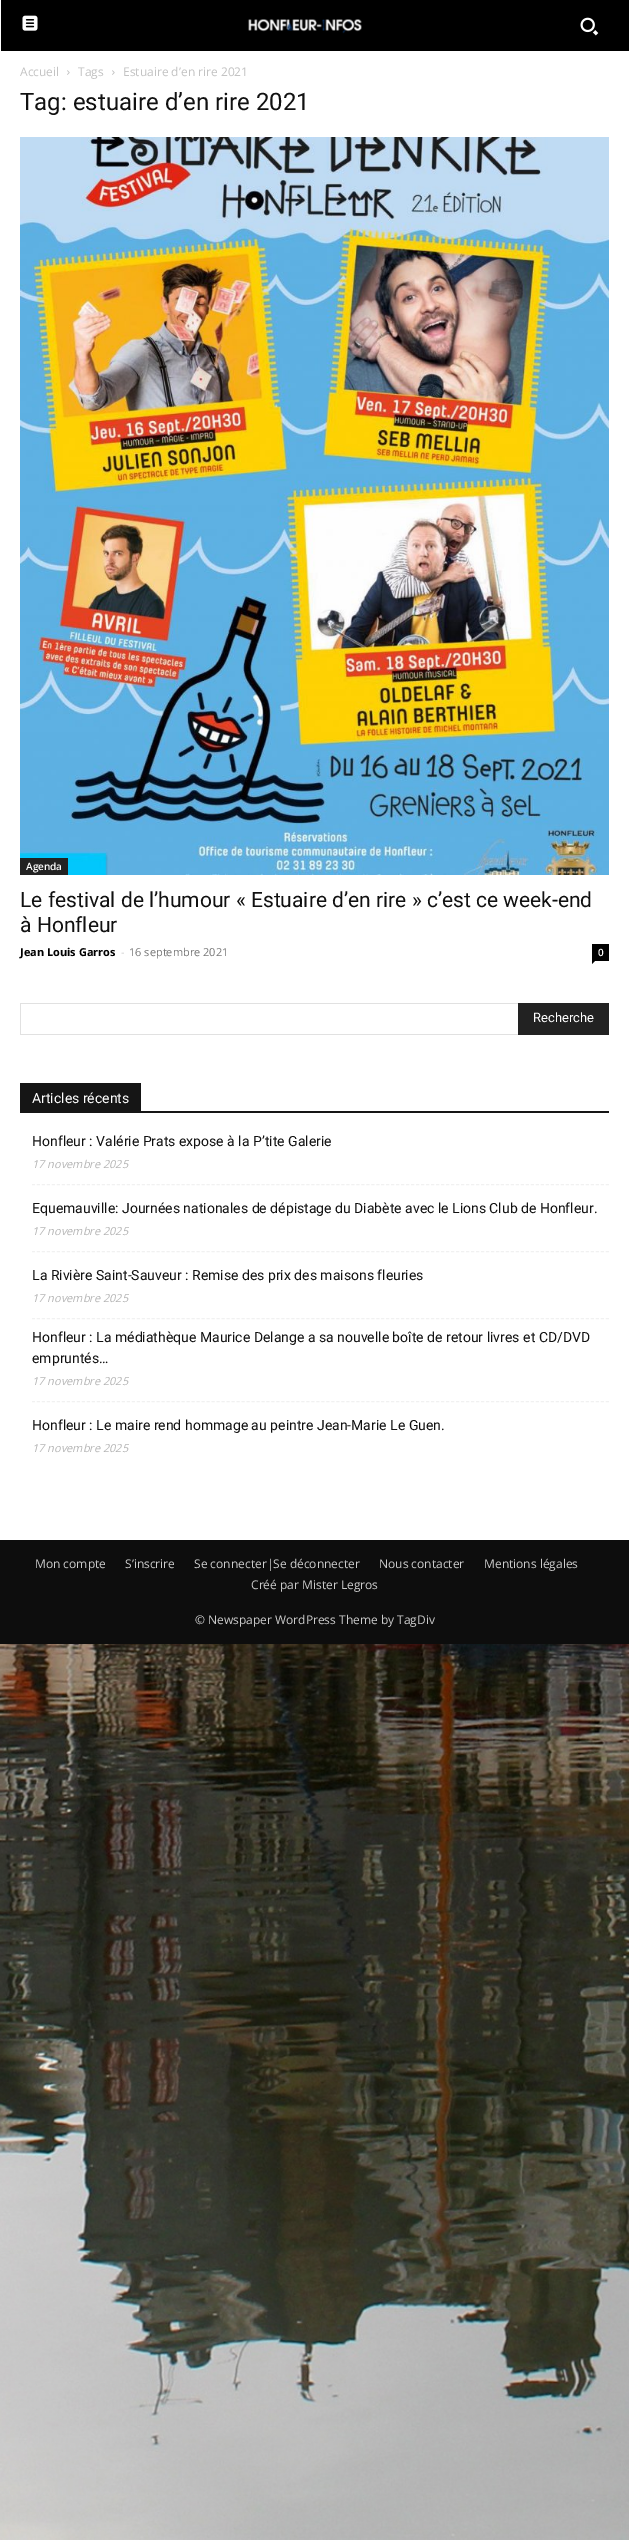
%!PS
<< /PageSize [629 2540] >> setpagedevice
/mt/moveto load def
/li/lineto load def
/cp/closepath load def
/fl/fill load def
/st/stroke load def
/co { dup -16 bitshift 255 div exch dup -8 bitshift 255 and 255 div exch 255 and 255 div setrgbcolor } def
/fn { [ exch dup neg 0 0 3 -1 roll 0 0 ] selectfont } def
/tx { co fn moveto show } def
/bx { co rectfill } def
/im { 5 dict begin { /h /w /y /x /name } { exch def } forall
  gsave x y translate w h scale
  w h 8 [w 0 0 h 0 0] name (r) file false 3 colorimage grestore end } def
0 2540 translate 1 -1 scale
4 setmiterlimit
0 0 629 2540 16#FFFFFF bx
1 0 628 51 16#000000 bx
(media/1.raw) 22 15 16 16 im
(media/2.raw) 248 19 114 15 im
(media/3.raw) 580 17 19 19 im
(media/4.raw) 67 70 3 5 im
(media/4.raw) 112 70 3 5 im
(media/5.raw) 20 137 589 738 im
20 858 48 17 16#222222 bx
592 944 17 17 16#000000 bx
592 961 mt 595 961 li 592 964 li cp fl
20 1003 498 1 16#E1E1E1 bx
20 1034 498 1 16#E1E1E1 bx
20 1003 1 32 16#E1E1E1 bx
518 1003 91 32 16#222222 bx
20 1111 589 2 16#151515 bx
20 1083 121 28 16#151515 bx
16#F1F1F1 co
[3 1.99] 0 setdash
32 1184.5 mt 609 1184.5 li st
32 1251.5 mt 609 1251.5 li st
32 1318.5 mt 609 1318.5 li st
32 1401.5 mt 609 1401.5 li st
0 1540 629 104 16#0D0D0D bx
(media/6.raw) 0 1644 629 896 im
(Accueil) 20 76 /OpenSans-Regular 12 16#C3C3C3 tx
(Tags) 78 76 /OpenSans-Regular 12 16#C3C3C3 tx
(Estuaire d’en rire 2021) 123 76 /OpenSans-Regular 12 16#C3C3C3 tx
(Tag: estuaire d’en rire 2021) 20 110 /Roboto-Regular 24 16#111111 tx
(Agenda) 26 870 /OpenSans-SemiBold 10 16#FFFFFF tx
(Le festival de l’humour « Estuaire d’en rire » c’est ce week-end) 20 907 /Roboto-Regular 21 16#111111 tx
(à Honfleur) 20 932 /Roboto-Regular 21 16#111111 tx
(Jean Louis Garros) 20 956 /OpenSans-Bold 11 16#000000 tx
(-) 121 956 /OpenSans-Regular 11 16#CCCCCC tx
(16 septembre 2021) 129 956 /OpenSans-Regular 11 16#767676 tx
(0) 598 956 /OpenSans-SemiBold 10 16#FFFFFF tx
(Recherche) 533 1022 /Roboto-Regular 13 16#FFFFFF tx
(Articles récents) 32 1103 /Roboto-Regular 14 16#FFFFFF tx
(Honfleur : Valérie Prats expose à la P’tite Galerie) 32 1146 /Roboto-Regular 14 16#111111 tx
(17 novembre 2025) 32 1168 /OpenSans-Italic 11 16#B5B5B5 tx
(Equemauville: Journées nationales de dépistage du Diabète avec le Lions Club de Honfleur.) 32 1213 /Roboto-Regular 14 16#111111 tx
(17 novembre 2025) 32 1235 /OpenSans-Italic 11 16#B5B5B5 tx
(La Rivière Saint-Sauveur : Remise des prix des maisons fleuries) 32 1280 /Roboto-Regular 14 16#111111 tx
(17 novembre 2025) 32 1302 /OpenSans-Italic 11 16#B5B5B5 tx
(Honfleur : La médiathèque Maurice Delange a sa nouvelle boîte de retour livres et CD/DVD) 32 1342 /Roboto-Regular 14 16#111111 tx
(empruntés…) 32 1363 /Roboto-Regular 14 16#111111 tx
(17 novembre 2025) 32 1385 /OpenSans-Italic 11 16#B5B5B5 tx
(Honfleur : Le maire rend hommage au peintre Jean-Marie Le Guen.) 32 1430 /Roboto-Regular 14 16#111111 tx
(17 novembre 2025) 32 1452 /OpenSans-Italic 11 16#B5B5B5 tx
(Mon compte) 35 1568 /OpenSans-Regular 12 16#CCCCCC tx
(S’inscrire) 125 1568 /OpenSans-Regular 12 16#CCCCCC tx
(Se connecter|Se déconnecter) 194 1568 /OpenSans-Regular 12 16#CCCCCC tx
(Nous contacter) 379 1568 /OpenSans-Regular 12 16#CCCCCC tx
(Mentions légales) 484 1568 /OpenSans-Regular 12 16#CCCCCC tx
(Créé par Mister Legros) 251 1589 /OpenSans-Regular 12 16#CCCCCC tx
(© Newspaper WordPress Theme by TagDiv) 195 1624 /OpenSans-Regular 12 16#CCCCCC tx
showpage
